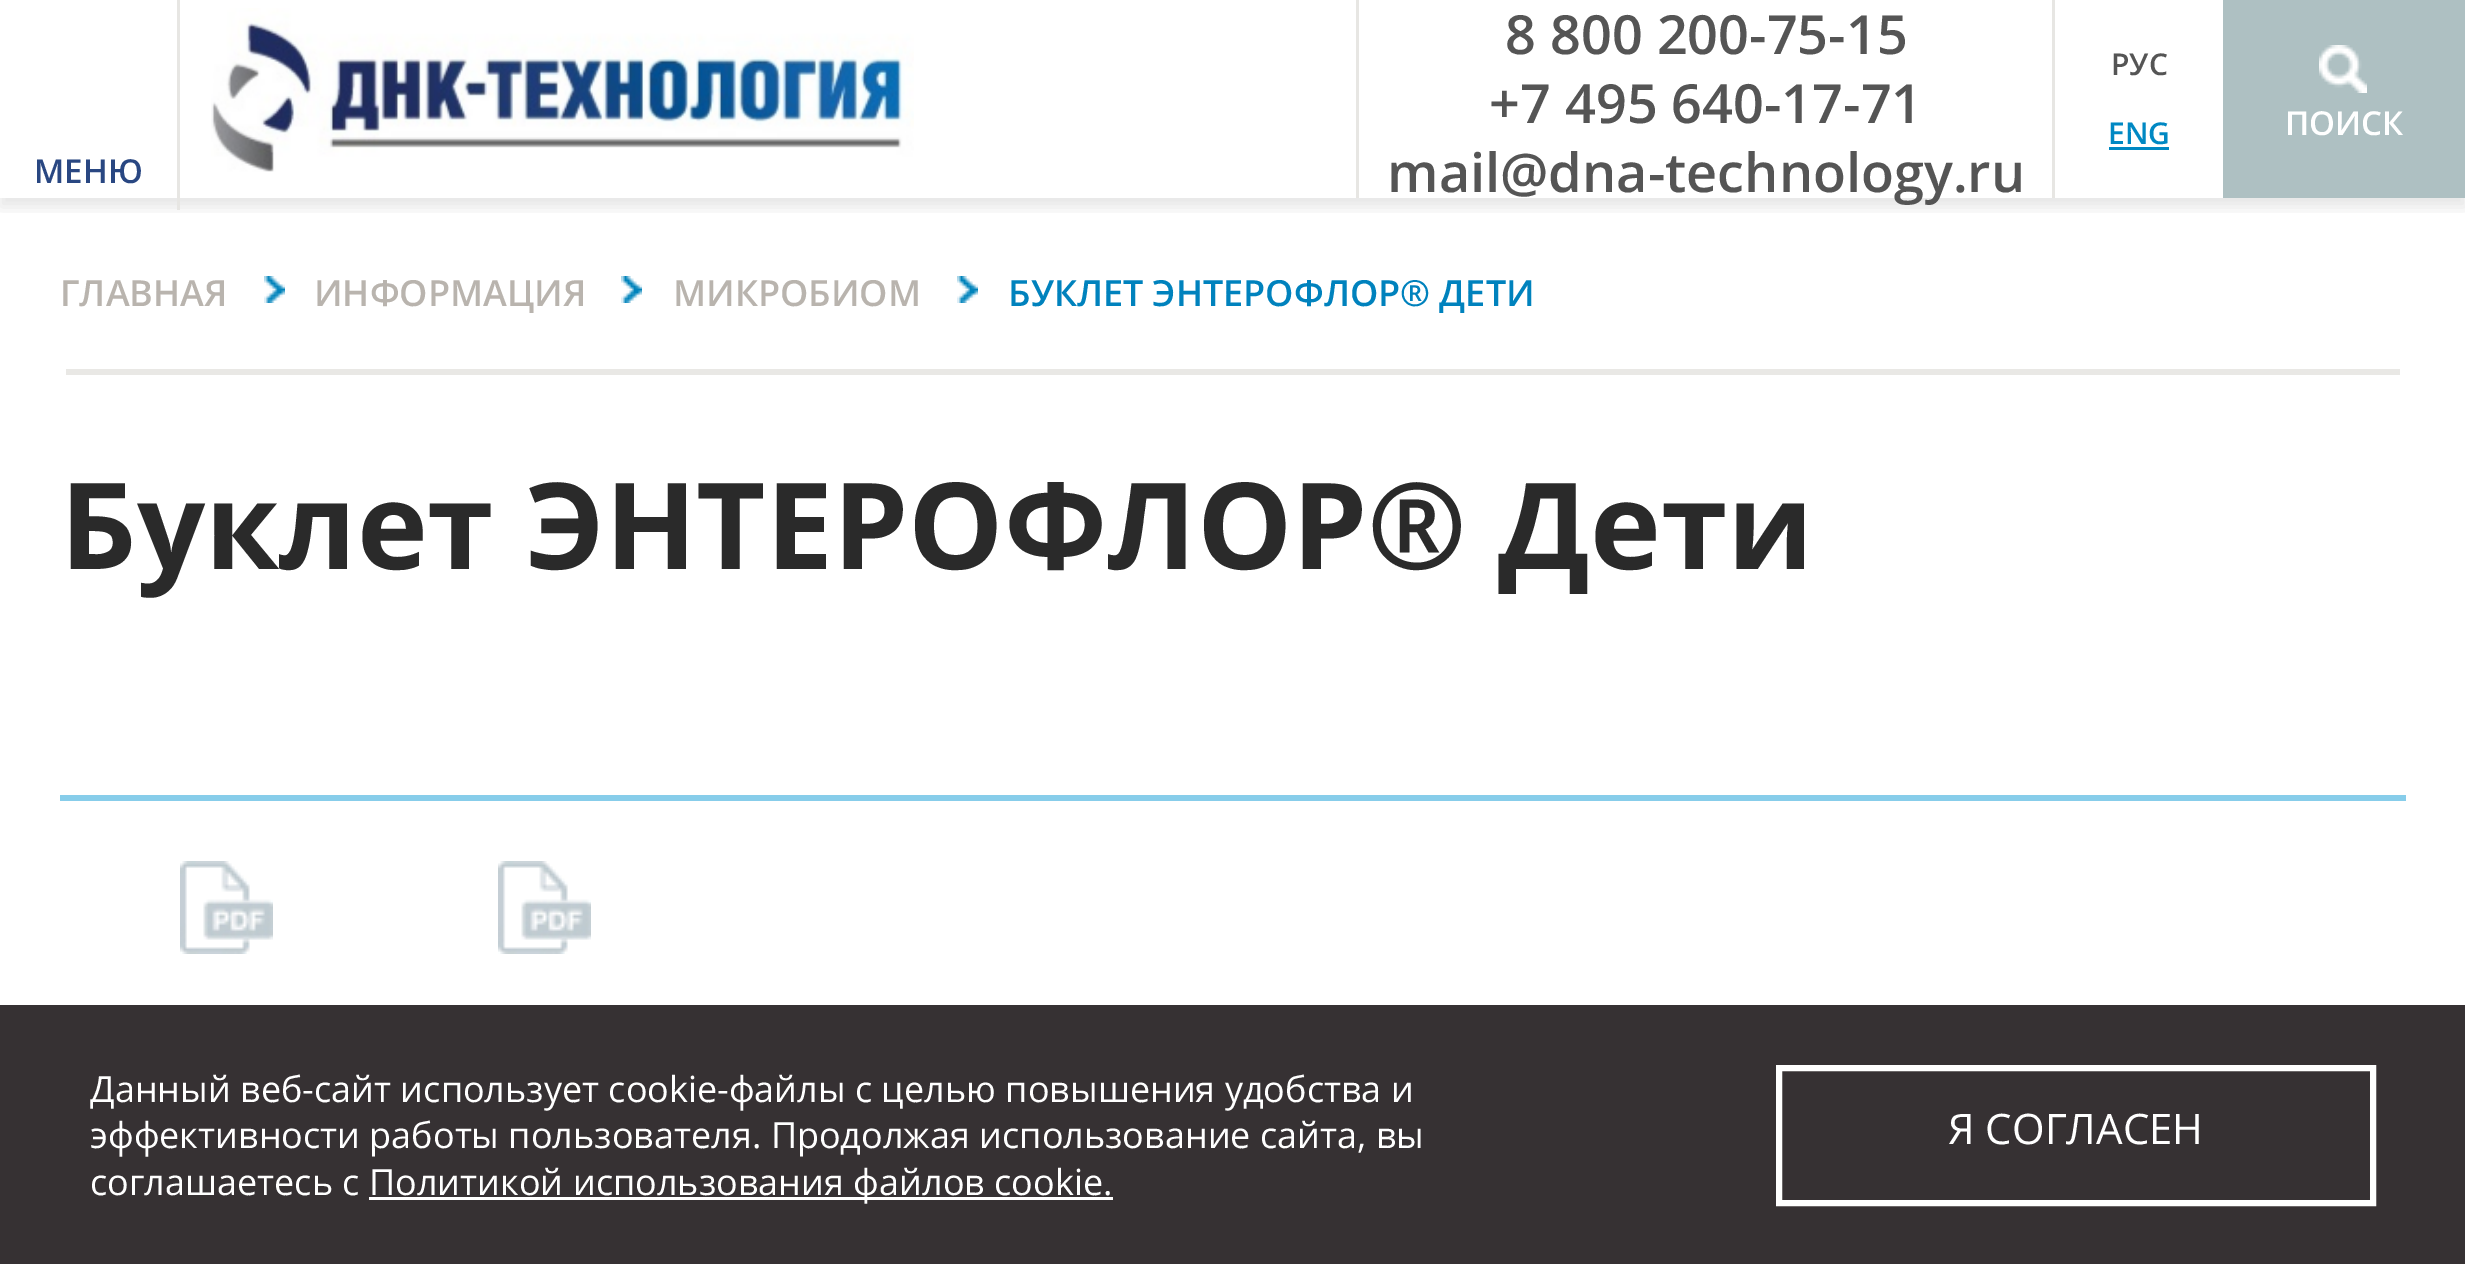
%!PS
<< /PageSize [2465 1264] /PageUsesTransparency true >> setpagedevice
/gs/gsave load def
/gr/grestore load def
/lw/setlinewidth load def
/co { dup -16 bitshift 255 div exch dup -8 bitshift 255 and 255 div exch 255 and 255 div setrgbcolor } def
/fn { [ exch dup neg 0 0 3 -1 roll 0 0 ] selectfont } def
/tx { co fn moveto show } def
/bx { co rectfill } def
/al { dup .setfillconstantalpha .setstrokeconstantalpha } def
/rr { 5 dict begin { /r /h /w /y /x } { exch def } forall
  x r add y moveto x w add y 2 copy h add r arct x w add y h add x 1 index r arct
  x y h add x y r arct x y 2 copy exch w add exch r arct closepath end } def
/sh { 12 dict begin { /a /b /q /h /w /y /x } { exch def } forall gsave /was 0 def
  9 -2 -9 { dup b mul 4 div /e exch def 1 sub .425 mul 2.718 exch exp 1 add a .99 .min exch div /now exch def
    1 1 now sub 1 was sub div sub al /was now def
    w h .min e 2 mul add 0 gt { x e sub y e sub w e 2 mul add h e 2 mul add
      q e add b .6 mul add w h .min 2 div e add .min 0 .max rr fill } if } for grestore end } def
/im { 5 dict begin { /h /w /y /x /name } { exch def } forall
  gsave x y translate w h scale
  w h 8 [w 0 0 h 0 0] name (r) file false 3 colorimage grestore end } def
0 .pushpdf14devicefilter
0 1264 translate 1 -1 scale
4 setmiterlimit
0 0 2465 1264 16#FFFFFF bx
gs
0 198 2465 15 rectclip
16#000000 co
0 9 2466 198 0 7.5 .1 sh
gr
177 0 3 210 16#E7E6E3 bx
(media/1.raw) 211 8 703 164 im
1356 0 3 198 16#E7E6E3 bx
2052 0 3 198 16#E7E6E3 bx
2109 147 60 3 16#0088C3 bx
2223 0 242 198 16#AEC0C2 bx
(media/2.raw) 2319 45 48 48 im
66 369 2334 6 16#E9E8E5 bx
(media/3.raw) 264 276 21 27 im
(media/4.raw) 621 276 21 27 im
(media/4.raw) 957 276 21 27 im
60 795 2346 6 16#87CDEA bx
(media/5.raw) 180 861 93 93 im
(media/6.raw) 498 861 93 93 im
0 1005 2465 259 16#363133 bx
369 1197 744 3 16#FFFFFF bx
6 lw
1779 1068 594 135 rectstroke
(МЕНЮ) 34 183 /OpenSans-SemiBold 33 16#294782 tx
(8 800 200-75-15) 1505 54 /OpenSans-SemiBold 54 16#555555 tx
(+7 495 640-17-71) 1489 123 /OpenSans-SemiBold 54 16#555555 tx
(mail@dna-technology.ru) 1387 192 /OpenSans-SemiBold 54 16#555555 tx
(РУС) 2111 75 /OpenSans-SemiBold 30 16#555555 tx
(ENG) 2108 144 /OpenSans-SemiBold 30 16#0088C3 tx
(ПОИСК) 2285 135 /OpenSans-SemiBold 33 16#FFFFFF tx
(ГЛАВНАЯ) 60 306 /OpenSans-SemiBold 36 16#B9B4AE tx
(ИНФОРМАЦИЯ) 314 306 /OpenSans-SemiBold 36 16#B9B4AE tx
(МИКРОБИОМ) 673 306 /OpenSans-SemiBold 36 16#B9B4AE tx
(БУКЛЕТ ЭНТЕРОФЛОР® ДЕТИ) 1008 306 /OpenSans-SemiBold 36 16#0082BD tx
(Буклет ЭНТЕРОФЛОР® Дети) 60 569 /OpenSans-Bold 120 16#2A2A2A tx
(Данный веб-сайт использует cookie-файлы с целью повышения удобства и) 90 1102 /OpenSans-Regular 36 16#FFFFFF tx
(эффективности работы пользователя. Продолжая использование сайта, вы) 90 1148 /OpenSans-Regular 36 16#FFFFFF tx
(соглашаетесь с) 90 1195 /OpenSans-Regular 36 16#FFFFFF tx
(Политикой использования файлов cookie.) 369 1195 /OpenSans-Regular 36 16#FFFFFF tx
(Я СОГЛАСЕН) 1948 1144 /OpenSans-Regular 42 16#FFFFFF tx
.poppdf14devicefilter showpage
